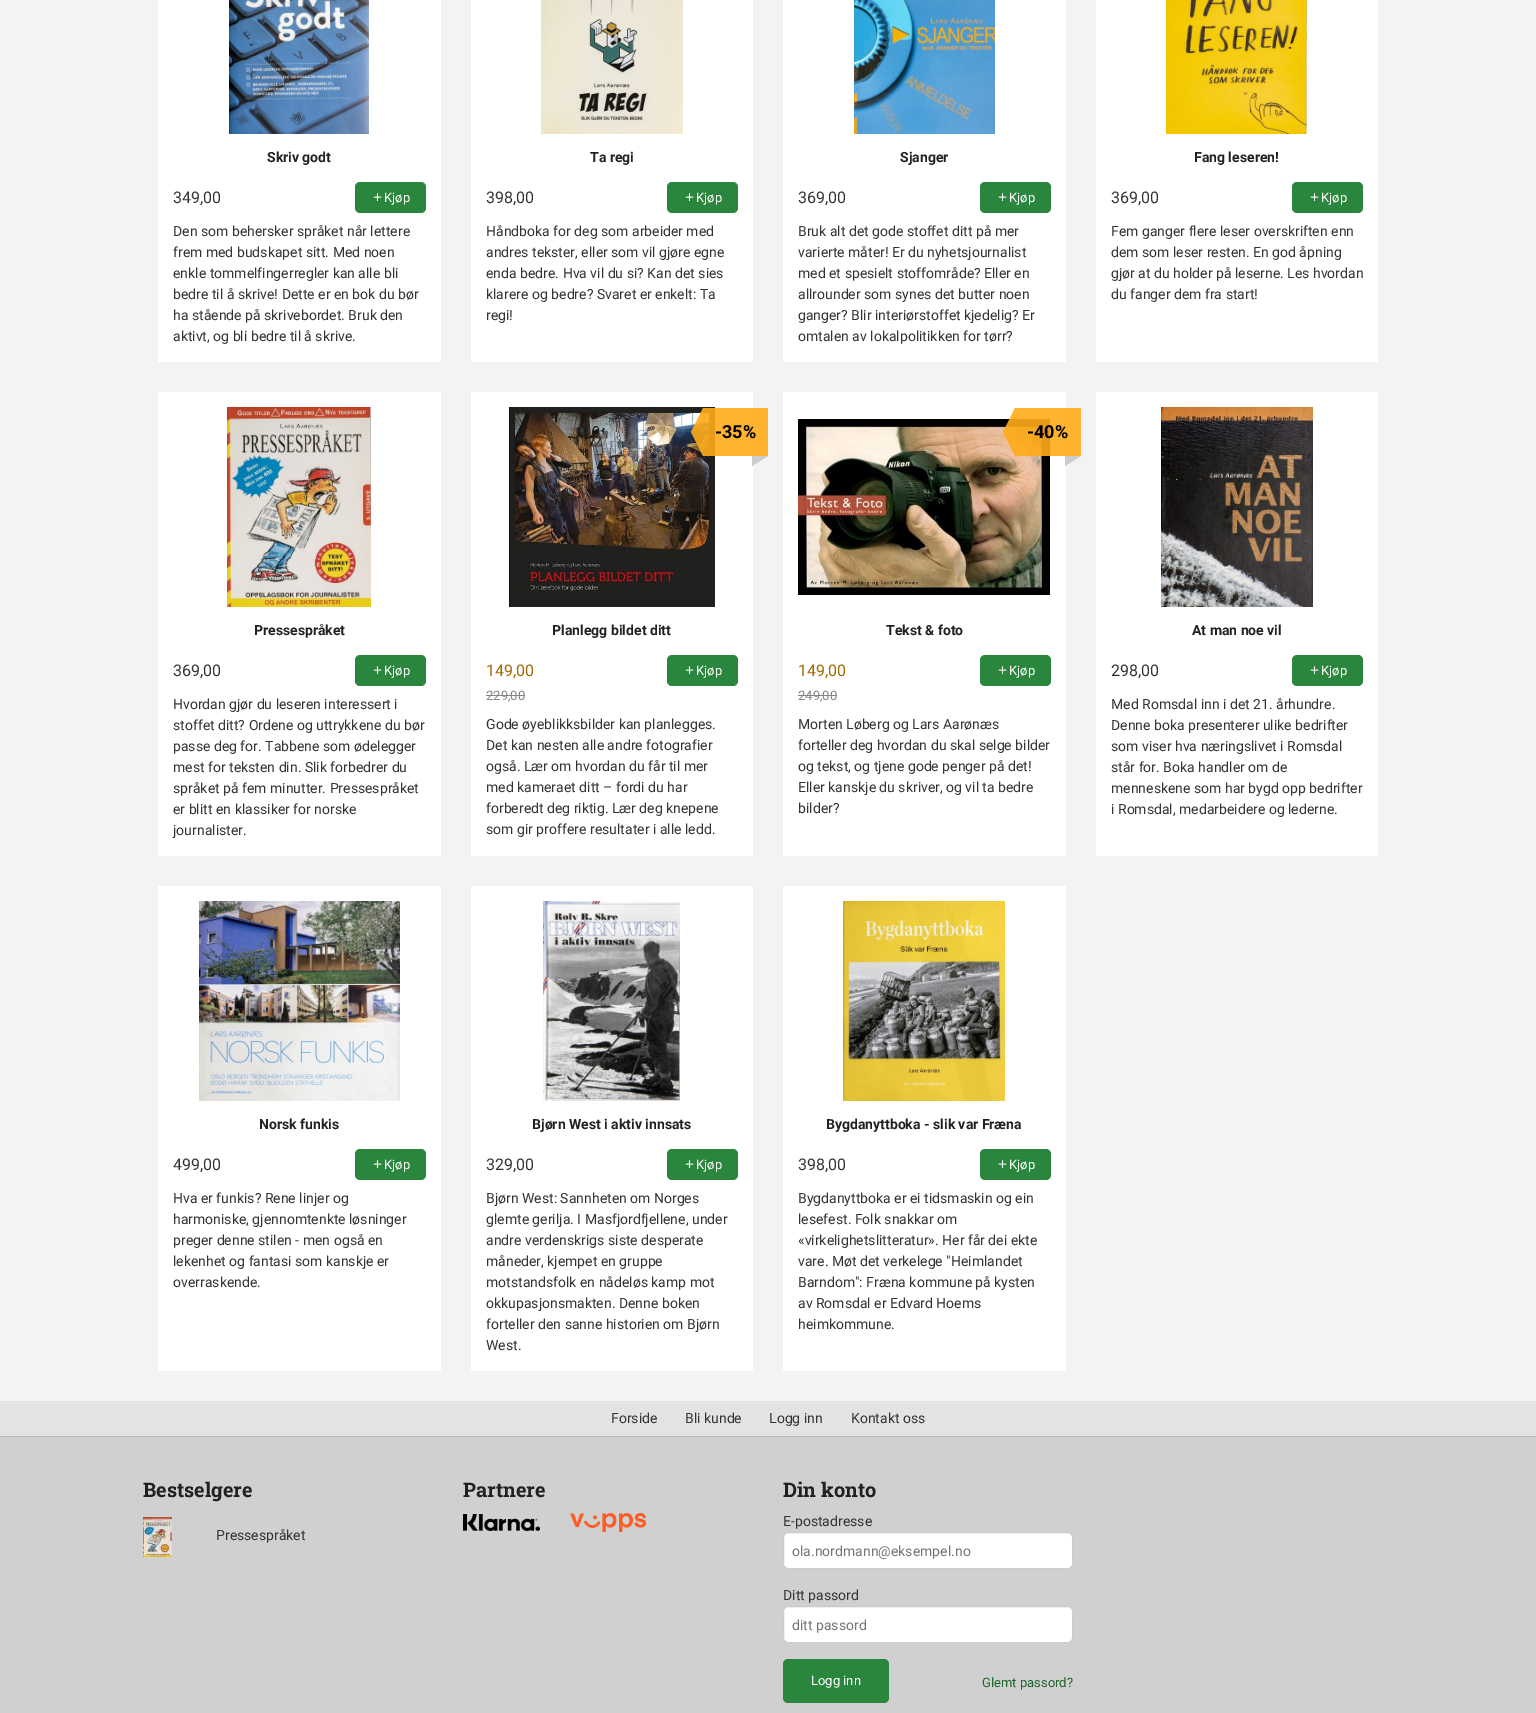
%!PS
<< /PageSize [1536 1713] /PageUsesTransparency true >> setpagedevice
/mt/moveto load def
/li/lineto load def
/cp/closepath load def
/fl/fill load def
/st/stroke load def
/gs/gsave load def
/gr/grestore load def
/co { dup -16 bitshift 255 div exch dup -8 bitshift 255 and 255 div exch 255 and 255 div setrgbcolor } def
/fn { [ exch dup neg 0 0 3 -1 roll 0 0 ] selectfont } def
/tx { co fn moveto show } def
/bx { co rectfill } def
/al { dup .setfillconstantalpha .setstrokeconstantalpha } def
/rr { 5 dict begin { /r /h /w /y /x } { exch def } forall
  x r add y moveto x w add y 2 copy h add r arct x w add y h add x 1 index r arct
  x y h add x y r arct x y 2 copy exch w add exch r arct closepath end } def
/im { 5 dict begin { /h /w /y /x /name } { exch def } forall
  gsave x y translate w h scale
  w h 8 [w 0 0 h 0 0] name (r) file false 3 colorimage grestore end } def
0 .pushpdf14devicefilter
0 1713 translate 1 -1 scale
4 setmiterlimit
0 0 1536 1713 16#F3F3F3 bx
158 0 283 362 16#FFFFFF bx
(media/1.raw) 229 0 140 134 im
16#2A863D co
355 182 71 31 5 rr fl
(media/2.raw) 373 193 9 8 im
471 0 282 362 16#FFFFFF bx
(media/3.raw) 541 0 142 134 im
16#2A863D co
667 182 71 31 5 rr fl
(media/2.raw) 685 193 9 8 im
783 0 283 362 16#FFFFFF bx
(media/4.raw) 854 0 141 134 im
16#2A863D co
980 182 71 31 5 rr fl
(media/2.raw) 998 193 9 8 im
1096 0 282 362 16#FFFFFF bx
(media/5.raw) 1166 0 141 134 im
16#2A863D co
1292 182 71 31 5 rr fl
(media/2.raw) 1310 193 9 8 im
158 392 283 464 16#FFFFFF bx
(media/6.raw) 227 407 144 200 im
16#2A863D co
355 655 71 31 5 rr fl
(media/2.raw) 373 666 9 8 im
471 392 282 464 16#FFFFFF bx
(media/7.raw) 509 407 206 200 im
0.9 al
703 408 65 48 16#FFAB18 bx
703 408 mt 703 456 li 691 432 li cp fl
1 al
16#CCCCCC co
752 466 mt 752 456 li 768 456 li cp fl
486 695 39 1 16#858585 bx
16#2A863D co
667 655 71 31 5 rr fl
(media/2.raw) 685 666 9 8 im
783 392 283 464 16#FFFFFF bx
(media/8.raw) 798 419 252 176 im
0.9 al
1015 408 66 48 16#FFAB18 bx
1015 408 mt 1015 456 li 1003 432 li cp fl
1 al
16#CCCCCC co
1065 466 mt 1065 456 li 1081 456 li cp fl
798 695 39 1 16#858585 bx
16#2A863D co
980 655 71 31 5 rr fl
(media/2.raw) 998 666 9 8 im
1096 392 282 464 16#FFFFFF bx
(media/9.raw) 1161 407 152 200 im
16#2A863D co
1292 655 71 31 5 rr fl
(media/2.raw) 1310 666 9 8 im
158 886 283 485 16#FFFFFF bx
(media/10.raw) 199 901 201 200 im
16#2A863D co
355 1149 71 31 5 rr fl
(media/2.raw) 373 1160 9 8 im
471 886 282 485 16#FFFFFF bx
(media/11.raw) 543 901 137 200 im
16#2A863D co
667 1149 71 31 5 rr fl
(media/2.raw) 685 1160 9 8 im
783 886 283 485 16#FFFFFF bx
(media/12.raw) 843 901 162 200 im
16#2A863D co
980 1149 71 31 5 rr fl
(media/2.raw) 998 1160 9 8 im
0 1401 1536 35 16#E3E3E3 bx
0 1437 1536 276 16#D0D0D0 bx
0 1436 1536 1 16#B6B6B6 bx
(media/13.raw) 143 1517 29 40 im
(media/14.raw) 463 1514 77 17 im
(media/15.raw) 570 1513 76 19 im
16#FFFFFF co
783.5 1532.5 289 36 4.5 rr gs fl gr
16#CCCCCC co
st
16#FFFFFF co
783.5 1606.5 289 36 4.5 rr gs fl gr
16#CCCCCC co
st
16#2A863D co
783 1659 106 44 5 rr fl
(Skriv godt) 267 162 /Roboto-Bold 14 16#212121 tx
(349,00) 173 203 /Roboto-Regular 16 16#333333 tx
(Kjøp) 384 202 /Roboto-Regular 13 16#FFFFFF tx
(Den som behersker språket når lettere) 173 236 /Roboto-Regular 14 16#333333 tx
(frem med budskapet sitt. Med noen) 173 257 /Roboto-Regular 14 16#333333 tx
(enkle tommelfingerregler kan alle bli) 173 278 /Roboto-Regular 14 16#333333 tx
(bedre til å skrive! Dette er en bok du bør) 173 299 /Roboto-Regular 14 16#333333 tx
(ha stående på skrivebordet. Bruk den) 173 320 /Roboto-Regular 14 16#333333 tx
(aktivt, og bli bedre til å skrive.) 173 341 /Roboto-Regular 14 16#333333 tx
(Ta regi) 590 162 /Roboto-Bold 14 16#212121 tx
(398,00) 486 203 /Roboto-Regular 16 16#333333 tx
(Kjøp) 696 202 /Roboto-Regular 13 16#FFFFFF tx
(Håndboka for deg som arbeider med) 486 236 /Roboto-Regular 14 16#333333 tx
(andres tekster, eller som vil gjøre egne) 486 257 /Roboto-Regular 14 16#333333 tx
(enda bedre. Hva vil du si? Kan det sies) 486 278 /Roboto-Regular 14 16#333333 tx
(klarere og bedre? Svaret er enkelt: Ta) 486 299 /Roboto-Regular 14 16#333333 tx
(regi!) 486 320 /Roboto-Regular 14 16#333333 tx
(Sjanger) 900 162 /Roboto-Bold 14 16#212121 tx
(369,00) 798 203 /Roboto-Regular 16 16#333333 tx
(Kjøp) 1009 202 /Roboto-Regular 13 16#FFFFFF tx
(Bruk alt det gode stoffet ditt på mer) 798 236 /Roboto-Regular 14 16#333333 tx
(varierte måter! Er du nyhetsjournalist) 798 257 /Roboto-Regular 14 16#333333 tx
(med et spesielt stoffområde? Eller en) 798 278 /Roboto-Regular 14 16#333333 tx
(allrounder som synes det butter noen) 798 299 /Roboto-Regular 14 16#333333 tx
(ganger? Blir interiørstoffet kjedelig? Er) 798 320 /Roboto-Regular 14 16#333333 tx
(omtalen av lokalpolitikken for tørr?) 798 341 /Roboto-Regular 14 16#333333 tx
(Fang leseren!) 1194 162 /Roboto-Bold 14 16#212121 tx
(369,00) 1111 203 /Roboto-Regular 16 16#333333 tx
(Kjøp) 1321 202 /Roboto-Regular 13 16#FFFFFF tx
(Fem ganger flere leser overskriften enn) 1111 236 /Roboto-Regular 14 16#333333 tx
(dem som leser resten. En god åpning) 1111 257 /Roboto-Regular 14 16#333333 tx
(gjør at du holder på leserne. Les hvordan) 1111 278 /Roboto-Regular 14 16#333333 tx
(du fanger dem fra start!) 1111 299 /Roboto-Regular 14 16#333333 tx
(Pressespråket) 254 635 /Roboto-Bold 14 16#212121 tx
(369,00) 173 676 /Roboto-Regular 16 16#333333 tx
(Kjøp) 384 675 /Roboto-Regular 13 16#FFFFFF tx
(Hvordan gjør du leseren interessert i) 173 709 /Roboto-Regular 14 16#333333 tx
(stoffet ditt? Ordene og uttrykkene du bør) 173 730 /Roboto-Regular 14 16#333333 tx
(passe deg for. Tabbene som ødelegger) 173 751 /Roboto-Regular 14 16#333333 tx
(mest for teksten din. Slik forbedrer du) 173 772 /Roboto-Regular 14 16#333333 tx
(språket på fem minutter. Pressespråket) 173 793 /Roboto-Regular 14 16#333333 tx
(er blitt en klassiker for norske) 173 814 /Roboto-Regular 14 16#333333 tx
(journalister.) 173 835 /Roboto-Regular 14 16#333333 tx
(-35%) 715 438 /Roboto-Bold 18 16#000000 tx
(149,00) 486 676 /Roboto-Regular 16 16#A26700 tx
(229,00) 486 700 /Roboto-Regular 13 16#858585 tx
(Planlegg bildet ditt) 552 635 /Roboto-Bold 14 16#212121 tx
(Kjøp) 696 675 /Roboto-Regular 13 16#FFFFFF tx
(Gode øyeblikksbilder kan planlegges.) 486 729 /Roboto-Regular 14 16#333333 tx
(Det kan nesten alle andre fotografier) 486 750 /Roboto-Regular 14 16#333333 tx
(også. Lær om hvordan du får til mer) 486 771 /Roboto-Regular 14 16#333333 tx
(med kameraet ditt – fordi du har) 486 792 /Roboto-Regular 14 16#333333 tx
(forberedt deg riktig. Lær deg knepene) 486 813 /Roboto-Regular 14 16#333333 tx
(som gir proffere resultater i alle ledd.) 486 834 /Roboto-Regular 14 16#333333 tx
(-40%) 1027 438 /Roboto-Bold 18 16#000000 tx
(149,00) 798 676 /Roboto-Regular 16 16#A26700 tx
(249,00) 798 700 /Roboto-Regular 13 16#858585 tx
(Tekst & foto) 886 635 /Roboto-Bold 14 16#212121 tx
(Kjøp) 1009 675 /Roboto-Regular 13 16#FFFFFF tx
(Morten Løberg og Lars Aarønæs) 798 729 /Roboto-Regular 14 16#333333 tx
(forteller deg hvordan du skal selge bilder) 798 750 /Roboto-Regular 14 16#333333 tx
(og tekst, og tjene gode penger på det!) 798 771 /Roboto-Regular 14 16#333333 tx
(Eller kanskje du skriver, og vil ta bedre) 798 792 /Roboto-Regular 14 16#333333 tx
(bilder?) 798 813 /Roboto-Regular 14 16#333333 tx
(At man noe vil) 1192 635 /Roboto-Bold 14 16#212121 tx
(298,00) 1111 676 /Roboto-Regular 16 16#333333 tx
(Kjøp) 1321 675 /Roboto-Regular 13 16#FFFFFF tx
(Med Romsdal inn i det 21. århundre.) 1111 709 /Roboto-Regular 14 16#333333 tx
(Denne boka presenterer ulike bedrifter) 1111 730 /Roboto-Regular 14 16#333333 tx
(som viser hva næringslivet i Romsdal) 1111 751 /Roboto-Regular 14 16#333333 tx
(står for. Boka handler om de) 1111 772 /Roboto-Regular 14 16#333333 tx
(menneskene som har bygd opp bedrifter) 1111 793 /Roboto-Regular 14 16#333333 tx
(i Romsdal, medarbeidere og lederne.) 1111 814 /Roboto-Regular 14 16#333333 tx
(Norsk funkis) 259 1129 /Roboto-Bold 14 16#212121 tx
(499,00) 173 1170 /Roboto-Regular 16 16#333333 tx
(Kjøp) 384 1169 /Roboto-Regular 13 16#FFFFFF tx
(Hva er funkis? Rene linjer og) 173 1203 /Roboto-Regular 14 16#333333 tx
(harmoniske, gjennomtenkte løsninger) 173 1224 /Roboto-Regular 14 16#333333 tx
(preger denne stilen - men også en) 173 1245 /Roboto-Regular 14 16#333333 tx
(lekenhet og fantasi som kanskje er) 173 1266 /Roboto-Regular 14 16#333333 tx
(overraskende.) 173 1287 /Roboto-Regular 14 16#333333 tx
(Bjørn West i aktiv innsats) 532 1129 /Roboto-Bold 14 16#212121 tx
(329,00) 486 1170 /Roboto-Regular 16 16#333333 tx
(Kjøp) 696 1169 /Roboto-Regular 13 16#FFFFFF tx
(Bjørn West: Sannheten om Norges) 486 1203 /Roboto-Regular 14 16#333333 tx
(glemte gerilja. I Masfjordfjellene, under) 486 1224 /Roboto-Regular 14 16#333333 tx
(andre verdenskrigs siste desperate) 486 1245 /Roboto-Regular 14 16#333333 tx
(måneder, kjempet en gruppe) 486 1266 /Roboto-Regular 14 16#333333 tx
(motstandsfolk en nådeløs kamp mot) 486 1287 /Roboto-Regular 14 16#333333 tx
(okkupasjonsmakten. Denne boken) 486 1308 /Roboto-Regular 14 16#333333 tx
(forteller den sanne historien om Bjørn) 486 1329 /Roboto-Regular 14 16#333333 tx
(West.) 486 1350 /Roboto-Regular 14 16#333333 tx
(Bygdanyttboka - slik var Fræna) 826 1129 /Roboto-Bold 14 16#212121 tx
(398,00) 798 1170 /Roboto-Regular 16 16#333333 tx
(Kjøp) 1009 1169 /Roboto-Regular 13 16#FFFFFF tx
(Bygdanyttboka er ei tidsmaskin og ein) 798 1203 /Roboto-Regular 14 16#333333 tx
(lesefest. Folk snakkar om) 798 1224 /Roboto-Regular 14 16#333333 tx
(«virkelighetslitteratur». Her får dei ekte) 798 1245 /Roboto-Regular 14 16#333333 tx
(vare. Møt det verkelege "Heimlandet) 798 1266 /Roboto-Regular 14 16#333333 tx
(Barndom": Fræna kommune på kysten) 798 1287 /Roboto-Regular 14 16#333333 tx
(av Romsdal er Edvard Hoems) 798 1308 /Roboto-Regular 14 16#333333 tx
(heimkommune.) 798 1329 /Roboto-Regular 14 16#333333 tx
(Forside) 611 1423 /Roboto-Regular 14 16#333333 tx
(Bli kunde) 685 1423 /Roboto-Regular 14 16#333333 tx
(Logg inn) 769 1423 /Roboto-Regular 14 16#333333 tx
(Kontakt oss) 851 1423 /Roboto-Regular 14 16#333333 tx
(Bestselgere) 143 1497 /RobotoSlab-Bold 20 16#212121 tx
(Pressespråket) 216 1540 /Roboto-Regular 14 16#333333 tx
(Partnere) 463 1497 /RobotoSlab-Bold 20 16#212121 tx
(Din konto) 783 1497 /RobotoSlab-Bold 20 16#212121 tx
(E-postadresse) 783 1526 /Roboto-Regular 14 16#333333 tx
(ola.nordmann@eksempel.no) 792 1556 /Roboto-Regular 14 16#757575 tx
(Ditt passord) 783 1600 /Roboto-Regular 14 16#333333 tx
(ditt passord) 792 1630 /Roboto-Regular 14 16#757575 tx
(Logg inn) 811 1685 /Roboto-Regular 13 16#FFFFFF tx
(Glemt passord?) 982 1687 /Roboto-Regular 13 16#1F632D tx
.poppdf14devicefilter showpage
